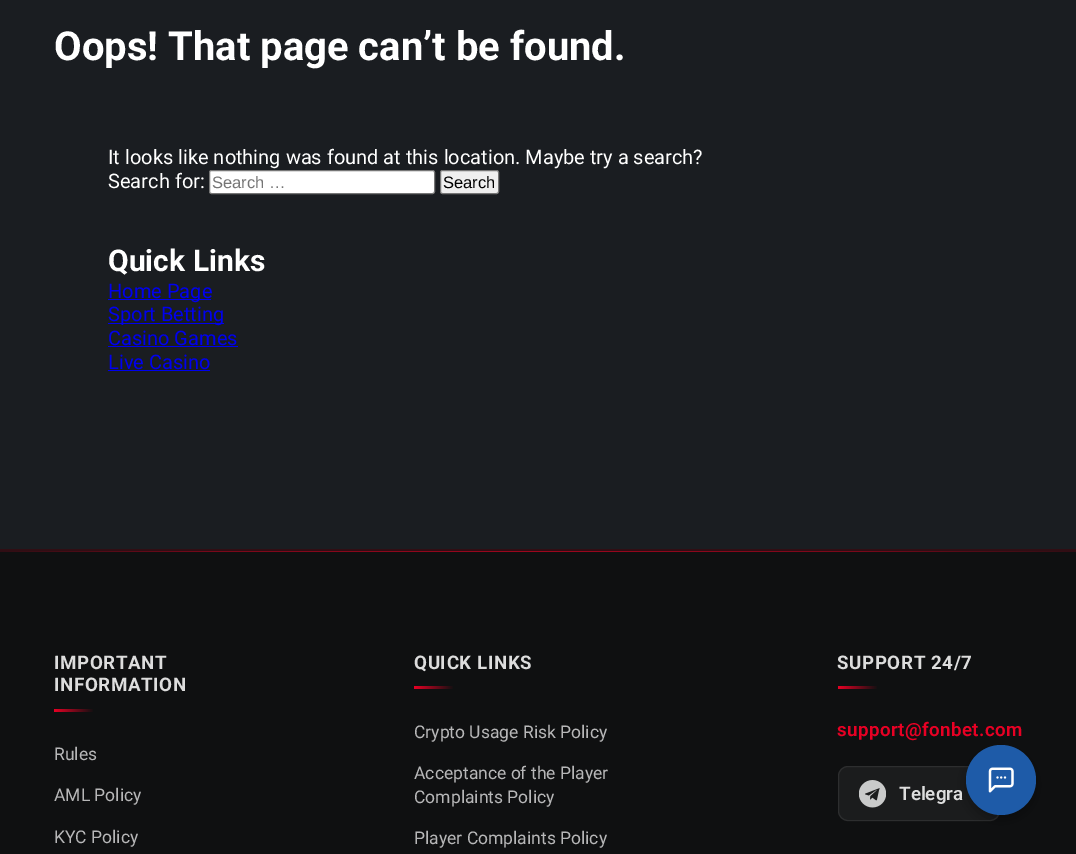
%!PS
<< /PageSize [1076 854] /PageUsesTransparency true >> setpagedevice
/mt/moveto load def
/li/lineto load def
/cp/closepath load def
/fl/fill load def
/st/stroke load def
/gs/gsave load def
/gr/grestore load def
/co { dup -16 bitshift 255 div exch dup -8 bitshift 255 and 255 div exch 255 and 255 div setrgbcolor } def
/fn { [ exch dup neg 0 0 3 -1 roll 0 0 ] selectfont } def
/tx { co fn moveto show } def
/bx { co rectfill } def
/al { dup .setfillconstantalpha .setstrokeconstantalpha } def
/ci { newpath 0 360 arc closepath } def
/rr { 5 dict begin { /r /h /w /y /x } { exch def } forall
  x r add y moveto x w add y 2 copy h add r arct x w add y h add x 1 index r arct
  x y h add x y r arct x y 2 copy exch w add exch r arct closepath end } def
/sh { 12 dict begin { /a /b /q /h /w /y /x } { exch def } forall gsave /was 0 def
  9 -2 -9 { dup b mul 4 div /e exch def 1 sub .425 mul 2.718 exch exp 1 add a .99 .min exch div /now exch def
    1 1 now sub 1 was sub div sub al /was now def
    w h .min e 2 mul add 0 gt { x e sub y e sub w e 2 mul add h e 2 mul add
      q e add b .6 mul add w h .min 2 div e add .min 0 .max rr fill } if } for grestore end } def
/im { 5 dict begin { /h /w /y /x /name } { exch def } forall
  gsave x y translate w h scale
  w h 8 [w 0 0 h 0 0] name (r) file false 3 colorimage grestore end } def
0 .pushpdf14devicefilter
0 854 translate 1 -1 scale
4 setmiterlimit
0 0 1076 854 16#1A1D21 bx
16#FFFFFF co
209.5 170.5 225 23 2 rr gs fl gr
16#767676 co
st
16#EFEFEF co
440.5 170.5 58 23 2 rr gs fl gr
16#767676 co
st
108 299 103 1 16#0000EE bx
108 323 116 1 16#0000EE bx
108 346 130 1 16#0000EE bx
108 370 102 1 16#0000EE bx
0 552 1076 302 16#0F1011 bx
0 549 1076 2 16#300E14 bx
gs 0 551 mt 1076 551 li 1076 552 li 0 552 li cp clip newpath
<< /ShadingType 2 /ColorSpace /DeviceRGB /Coords [0 552 1076 552] /Extend [true true] /Function << /FunctionType 3 /Domain [0 1] /Functions [<< /FunctionType 2 /Domain [0 1] /C0 [.188 .055 .078] /C1 [.478 .031 .102] /N 1 >> << /FunctionType 2 /Domain [0 1] /C0 [.478 .031 .102] /C1 [.62 .024 .118] /N 1 >> << /FunctionType 2 /Domain [0 1] /C0 [.62 .024 .118] /C1 [.478 .031 .102] /N 1 >> << /FunctionType 2 /Domain [0 1] /C0 [.478 .031 .102] /C1 [.188 .055 .078] /N 1 >>] /Bounds [.2 .5 .8] /Encode [0 1 0 1 0 1 0 1] >> >> shfill gr
gs 54 709 40 3 1.5 rr clip newpath
<< /ShadingType 2 /ColorSpace /DeviceRGB /Coords [54 710 94 710] /Extend [true true] /Function << /FunctionType 2 /Domain [0 1] /C0 [.91 0 .141] /C1 [.059 .063 .067] /N 1 >> >> shfill gr
gs 414 686 40 3 1.5 rr clip newpath
<< /ShadingType 2 /ColorSpace /DeviceRGB /Coords [414 688 454 688] /Extend [true true] /Function << /FunctionType 2 /Domain [0 1] /C0 [.91 0 .141] /C1 [.059 .063 .067] /N 1 >> >> shfill gr
gs 838 686 40 3 1.5 rr clip newpath
<< /ShadingType 2 /ColorSpace /DeviceRGB /Coords [838 688 878 688] /Extend [true true] /Function << /FunctionType 2 /Domain [0 1] /C0 [.91 0 .141] /C1 [.059 .063 .067] /N 1 >> >> shfill gr
16#1B1C1D co
838 766 162 55 10 rr fl
0.08 al
16#FFFFFF co
838.5 766.5 161 54 9.5 rr st
1 al
(media/1.raw) 859 780 27 28 im
16#000000 co
966 750 70 70 35 7.5 .3 sh
16#1E5BA8 co
1001 780 35 ci fl
(media/2.raw) 988 767 26 26 im
(Oops! That page can’t be found.) 54 60 /Roboto-Bold 40 16#FFFFFF tx
(It looks like nothing was found at this location. Maybe try a search?) 108 164 /Roboto-Regular 20 16#FFFFFF tx
(Search for:) 108 188 /Roboto-Regular 20 16#FFFFFF tx
(Search …) 212 188 /LiberationSans-Regular 16.5 16#757575 tx
(Search) 443 188 /LiberationSans-Regular 16.5 16#000000 tx
(Quick Links) 108 271 /Roboto-Bold 30 16#FFFFFF tx
(Home Page) 108 298 /Roboto-Regular 20 16#0000EE tx
(Sport Betting) 108 321 /Roboto-Regular 20 16#0000EE tx
(Casino Games) 108 345 /Roboto-Regular 20 16#0000EE tx
(Live Casino) 108 369 /Roboto-Regular 20 16#0000EE tx
/Roboto-Bold 18.75 fn
16#DDDDDD co
54 669 mt .6 0 (IMPORTANT) ashow
54 691 mt .6 0 (INFORMATION) ashow
(Rules) 54 760 /Roboto-Regular 17.5 16#B7B7B8 tx
(AML Policy) 54 801 /Roboto-Regular 17.5 16#B7B7B8 tx
(KYC Policy) 54 843 /Roboto-Regular 17.5 16#B7B7B8 tx
/Roboto-Bold 18.75 fn
16#DDDDDD co
414 669 mt .6 0 (QUICK LINKS) ashow
(Crypto Usage Risk Policy) 414 738 /Roboto-Regular 17.5 16#B7B7B8 tx
(Acceptance of the Player) 414 779 /Roboto-Regular 17.5 16#B7B7B8 tx
(Complaints Policy) 414 803 /Roboto-Regular 17.5 16#B7B7B8 tx
(Player Complaints Policy) 414 844 /Roboto-Regular 17.5 16#B7B7B8 tx
/Roboto-Bold 18.75 fn
16#DDDDDD co
837 669 mt .6 0 (SUPPORT 24/7) ashow
/Roboto-SemiBold 18.75 fn
16#E80024 co
837 736 mt .4 0 (support@fonbet.com) ashow
(Telegra) 899 800 /Roboto-SemiBold 18.75 16#DDDDDD tx
.poppdf14devicefilter showpage
